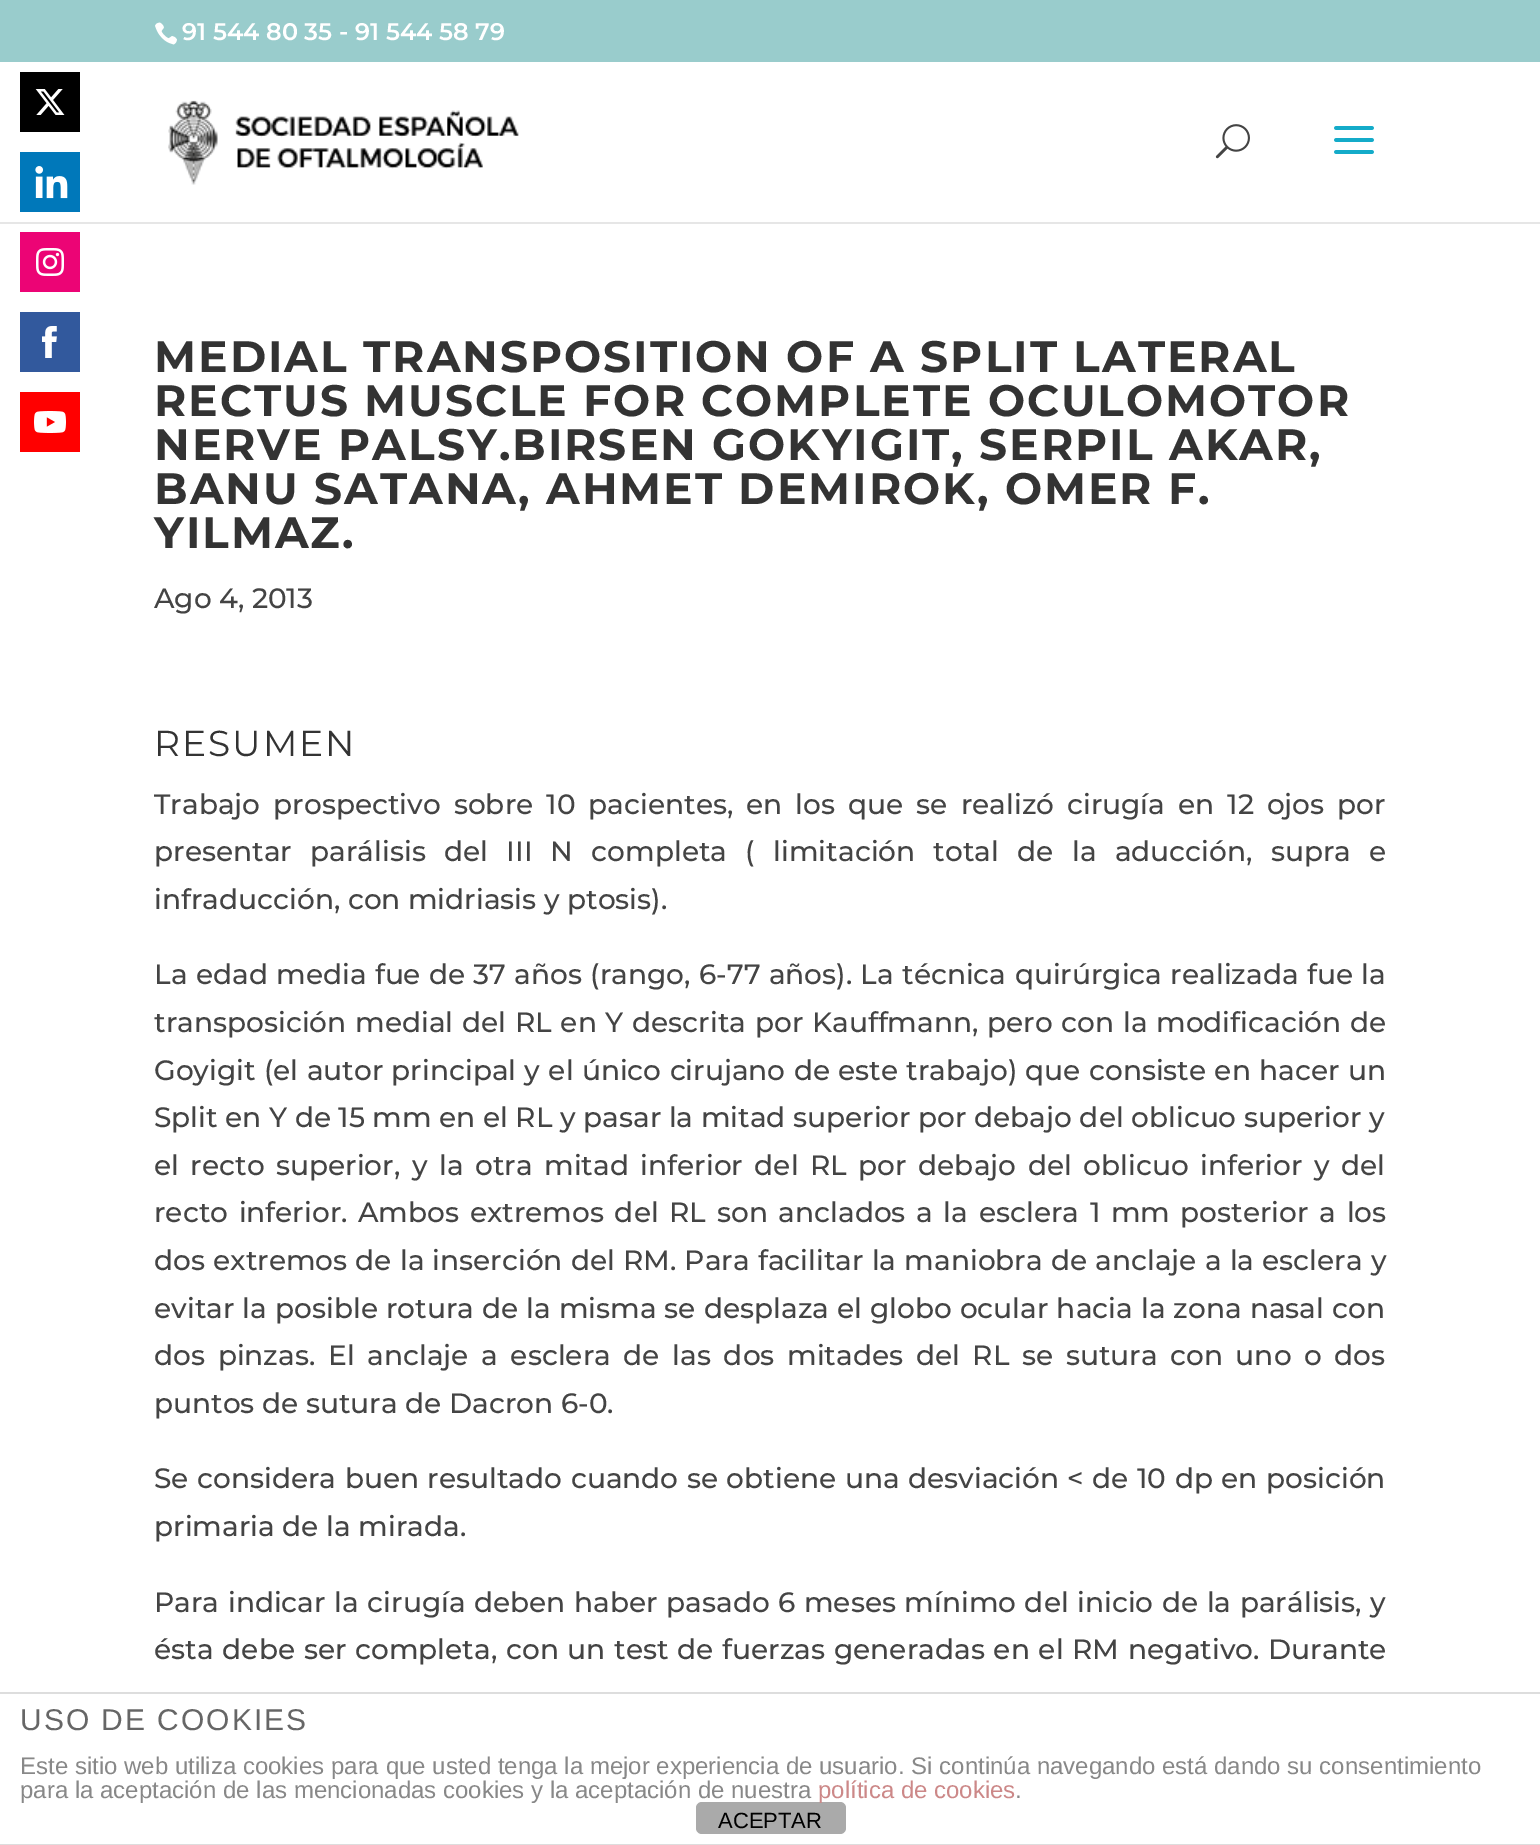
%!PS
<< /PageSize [1540 1845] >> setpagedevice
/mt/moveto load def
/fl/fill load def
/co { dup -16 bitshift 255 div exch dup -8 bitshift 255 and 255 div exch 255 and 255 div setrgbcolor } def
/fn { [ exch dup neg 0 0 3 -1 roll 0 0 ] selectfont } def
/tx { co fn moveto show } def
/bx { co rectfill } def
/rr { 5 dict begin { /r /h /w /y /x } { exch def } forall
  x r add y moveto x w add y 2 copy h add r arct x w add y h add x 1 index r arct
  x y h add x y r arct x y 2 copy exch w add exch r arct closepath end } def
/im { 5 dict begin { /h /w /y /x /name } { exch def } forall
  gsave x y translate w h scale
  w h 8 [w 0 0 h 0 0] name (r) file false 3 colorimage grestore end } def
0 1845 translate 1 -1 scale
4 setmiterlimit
0 0 1540 1845 16#FFFFFF bx
20 72 60 60 16#000000 bx
(media/1.raw) 35 89 30 26 im
20 152 60 60 16#0078BA bx
(media/2.raw) 35 166 33 33 im
20 232 60 60 16#EC0475 bx
(media/3.raw) 36 248 28 28 im
20 312 60 60 16#32599D bx
(media/4.raw) 42 326 15 32 im
20 392 60 60 16#FF0000 bx
(media/5.raw) 34 411 32 22 im
0 0 1540 62 16#99CCCC bx
(media/6.raw) 155 22 22 23 im
0 222 1540 2 16#E6E6E6 bx
(media/7.raw) 168 100 351 85 im
(media/8.raw) 1215 124 35 35 im
(media/9.raw) 1334 126 40 28 im
0 1692 1540 2 16#DDDDDD bx
0 1844 1540 1 16#DDDDDD bx
16#AAAAAA co
696 1802 150 32 6 rr fl
(91 544 80 35 - 91 544 58 79) 182 40 /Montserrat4-Thin 24 16#FFFFFF tx
/Montserrat-Thin 44 fn
16#333333 co
154 372 mt 2 0 (MEDIAL TRANSPOSITION OF A SPLIT LATERAL) ashow
154 416 mt 2 0 (RECTUS MUSCLE FOR COMPLETE OCULOMOTOR) ashow
154 460 mt 2 0 (NERVE PALSY.BIRSEN GOKYIGIT, SERPIL AKAR,) ashow
154 504 mt 2 0 (BANU SATANA, AHMET DEMIROK, OMER F.) ashow
154 548 mt 2 0 (YILMAZ.) ashow
(Ago 4, 2013) 154 608 /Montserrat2-Thin 28 16#444444 tx
/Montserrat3-Thin 36 fn
16#333333 co
154 756 mt 2 0 (RESUMEN) ashow
/Montserrat2-Thin 28 fn
16#444444 co
154 814 mt 5.5 0 32 (Trabajo prospectivo sobre 10 pacientes, en los que se realizó cirugía en 12 ojos por) widthshow
154 861 mt 10.75 0 32 (presentar parálisis del III N completa \( limitación total de la aducción, supra e) widthshow
(infraducción, con midriasis y ptosis\).) 154 909 /Montserrat2-Thin 28 16#444444 tx
154 984 mt .75 0 32 (La edad media fue de 37 años \(rango, 6-77 años\). La técnica quirúrgica realizada fue la) widthshow
154 1032 mt 1.2 0 32 (transposición medial del RL en Y descrita por Kauffmann, pero con la modificación de) widthshow
154 1080 mt .75 0 32 (Goyigit \(el autor principal y el único cirujano de este trabajo\) que consiste en hacer un) widthshow
(Split en Y de 15 mm en el RL y pasar la mitad superior por debajo del oblicuo superior y) 154 1127 /Montserrat2-Thin 28 16#444444 tx
154 1175 mt 4 0 32 (el recto superior, y la otra mitad inferior del RL por debajo del oblicuo inferior y del) widthshow
154 1222 mt 3.1 0 32 (recto inferior. Ambos extremos del RL son anclados a la esclera 1 mm posterior a los) widthshow
154 1270 mt .6 0 32 (dos extremos de la inserción del RM. Para facilitar la maniobra de anclaje a la esclera y) widthshow
154 1318 mt .5 0 32 (evitar la posible rotura de la misma se desplaza el globo ocular hacia la zona nasal con) widthshow
154 1365 mt 5.1 0 32 (dos pinzas. El anclaje a esclera de las dos mitades del RL se sutura con uno o dos) widthshow
(puntos de sutura de Dacron 6-0.) 154 1413 /Montserrat2-Thin 28 16#444444 tx
154 1488 mt 1 0 32 (Se considera buen resultado cuando se obtiene una desviación < de 10 dp en posición) widthshow
(primaria de la mirada.) 154 1536 /Montserrat2-Thin 28 16#444444 tx
154 1612 mt 1 0 32 (Para indicar la cirugía deben haber pasado 6 meses mínimo del inicio de la parálisis, y) widthshow
154 1659 mt 1.25 0 32 (ésta debe ser completa, con un test de fuerzas generadas en el RM negativo. Durante) widthshow
/LiberationSans-Regular 30 fn
16#666666 co
20 1730 mt 2 0 (USO DE COOKIES) ashow
(Este sitio web utiliza cookies para que usted tenga la mejor experiencia de usuario. Si continúa navegando está dando su consentimiento) 20 1774 /LiberationSans-Regular 24 16#888888 tx
(para la aceptación de las mencionadas cookies y la aceptación de nuestra) 20 1798 /LiberationSans-Regular 24 16#888888 tx
(política de cookies) 818 1798 /LiberationSans-Regular 24 16#CC8888 tx
(.) 1015 1798 /LiberationSans-Regular 24 16#888888 tx
(ACEPTAR) 718 1828 /LiberationSans-Regular 22 16#000000 tx
showpage
